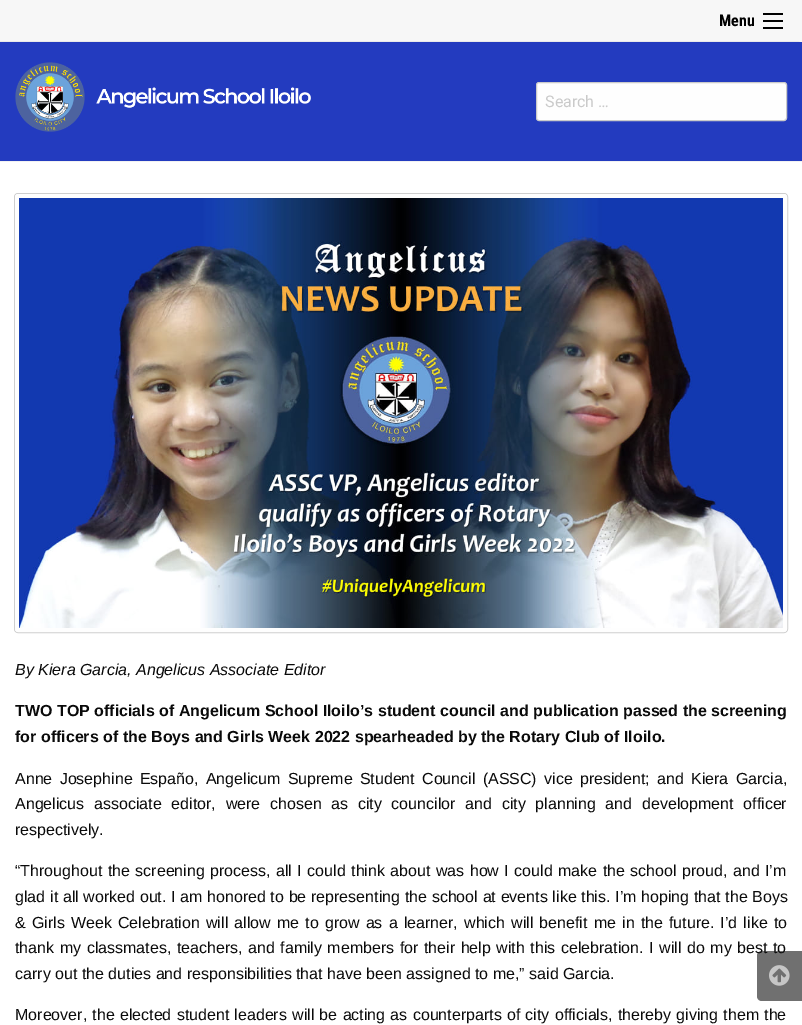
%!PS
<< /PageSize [802 1025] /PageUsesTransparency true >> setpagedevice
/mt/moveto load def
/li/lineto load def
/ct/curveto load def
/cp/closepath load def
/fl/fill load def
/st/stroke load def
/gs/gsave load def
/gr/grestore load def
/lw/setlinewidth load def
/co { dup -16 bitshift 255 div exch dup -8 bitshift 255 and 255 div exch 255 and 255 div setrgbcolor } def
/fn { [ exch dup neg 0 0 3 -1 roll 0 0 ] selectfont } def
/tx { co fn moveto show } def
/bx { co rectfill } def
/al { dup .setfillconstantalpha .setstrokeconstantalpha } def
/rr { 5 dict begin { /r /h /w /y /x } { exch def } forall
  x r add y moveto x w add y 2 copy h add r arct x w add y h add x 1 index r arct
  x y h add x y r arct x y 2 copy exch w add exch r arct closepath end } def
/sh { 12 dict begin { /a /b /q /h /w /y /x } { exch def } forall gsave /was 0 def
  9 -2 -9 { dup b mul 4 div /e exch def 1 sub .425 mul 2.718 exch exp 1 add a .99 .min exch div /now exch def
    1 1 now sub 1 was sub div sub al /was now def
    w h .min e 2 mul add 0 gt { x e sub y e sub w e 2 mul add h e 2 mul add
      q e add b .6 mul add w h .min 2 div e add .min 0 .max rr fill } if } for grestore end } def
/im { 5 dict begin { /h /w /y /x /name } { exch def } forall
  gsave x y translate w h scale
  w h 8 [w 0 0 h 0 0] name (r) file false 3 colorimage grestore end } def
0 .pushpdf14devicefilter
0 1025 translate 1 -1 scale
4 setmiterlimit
0 0 802 1025 16#FFFFFF bx
16#000000 co
-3 0 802 41 0 2 .2 sh
0 0 802 41 16#F7F7F7 bx
763 27 20 2 16#000000 bx
763 20 20 2 16#000000 bx
763 13 20 2 16#000000 bx
0 42 802 119 16#233BBF bx
0 161 802 1 16#F2F2F2 bx
(media/1.raw) 15 62 296 70 im
16#FEFEFE co
536.5 82.5 250 38 2.5 rr gs fl gr
16#CACACA co
st
16#CECECE co
14.5 193.5 773 439 3.5 rr st
16#FEFEFE co
4 lw
17 196 768 434 1 rr st
(media/2.raw) 19 198 764 430 im
(Menu) 719 26 /RobotoCondensed-Bold 16 16#000000 tx
(Search …) 545 107 /Roboto-Regular 16 16#CACACA tx
(By Kiera Garcia, Angelicus Associate Editor) 15 675 /LiberationSans-Italic 16 16#0A0A0A tx
(TWO TOP officials of Angelicum School Iloilo’s student council and publication passed the screening) 15 716 /LiberationSans-Bold 16 16#0A0A0A tx
(for officers of the Boys and Girls Week 2022 spearheaded by the Rotary Club of Iloilo.) 15 742 /LiberationSans-Bold 16 16#0A0A0A tx
/LiberationSans-Regular 16 fn
15 784 mt 2.75 0 32 (Anne Josephine Españo, Angelicum Supreme Student Council \(ASSC\) vice president; and Kiera Garcia,) widthshow
15 809 mt 5.25 0 32 (Angelicus associate editor, were chosen as city councilor and city planning and development officer) widthshow
(respectively.) 15 835 /LiberationSans-Regular 16 16#0A0A0A tx
15 876 mt 1 0 32 (“Throughout the screening process, all I could think about was how I could make the school proud, and I’m) widthshow
15 902 mt .25 0 32 (glad it all worked out. I am honored to be representing the school at events like this. I’m hoping that the Boys) widthshow
15 928 mt 1.7 0 32 (& Girls Week Celebration will allow me to grow as a learner, which will benefit me in the future. I’d like to) widthshow
15 953 mt 1.1 0 32 (thank my classmates, teachers, and family members for their help with this celebration. I will do my best to) widthshow
(carry out the duties and responsibilities that have been assigned to me,” said Garcia.) 15 979 /LiberationSans-Regular 16 16#0A0A0A tx
15 1020 mt .8 0 32 (Moreover, the elected student leaders will be acting as counterparts of city officials, thereby giving them the) widthshow
0.6 al
16#111111 co
762 951 mt 802 951 li 802 1001 li 762 1001 li 759 1001 757 999 757 996 ct 757 956 li 757 953 759 951 762 951 ct cp fl
1 al
(media/3.raw) 769 965 21 21 im
.poppdf14devicefilter showpage
